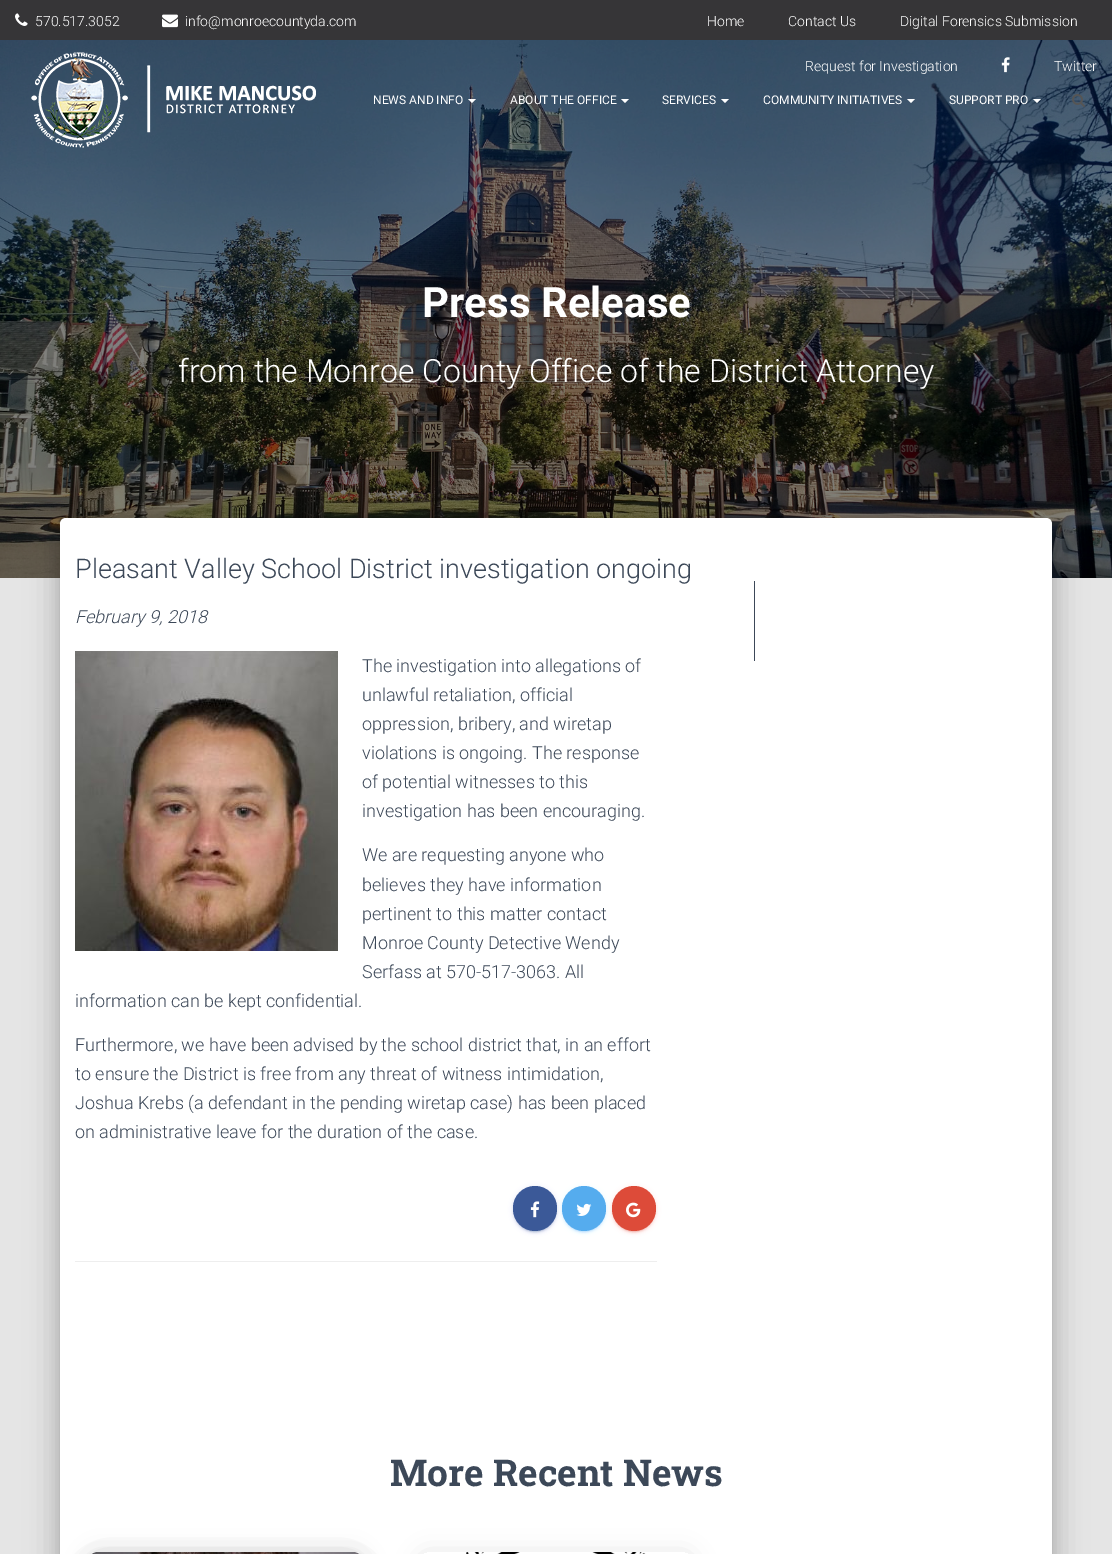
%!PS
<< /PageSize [1112 1554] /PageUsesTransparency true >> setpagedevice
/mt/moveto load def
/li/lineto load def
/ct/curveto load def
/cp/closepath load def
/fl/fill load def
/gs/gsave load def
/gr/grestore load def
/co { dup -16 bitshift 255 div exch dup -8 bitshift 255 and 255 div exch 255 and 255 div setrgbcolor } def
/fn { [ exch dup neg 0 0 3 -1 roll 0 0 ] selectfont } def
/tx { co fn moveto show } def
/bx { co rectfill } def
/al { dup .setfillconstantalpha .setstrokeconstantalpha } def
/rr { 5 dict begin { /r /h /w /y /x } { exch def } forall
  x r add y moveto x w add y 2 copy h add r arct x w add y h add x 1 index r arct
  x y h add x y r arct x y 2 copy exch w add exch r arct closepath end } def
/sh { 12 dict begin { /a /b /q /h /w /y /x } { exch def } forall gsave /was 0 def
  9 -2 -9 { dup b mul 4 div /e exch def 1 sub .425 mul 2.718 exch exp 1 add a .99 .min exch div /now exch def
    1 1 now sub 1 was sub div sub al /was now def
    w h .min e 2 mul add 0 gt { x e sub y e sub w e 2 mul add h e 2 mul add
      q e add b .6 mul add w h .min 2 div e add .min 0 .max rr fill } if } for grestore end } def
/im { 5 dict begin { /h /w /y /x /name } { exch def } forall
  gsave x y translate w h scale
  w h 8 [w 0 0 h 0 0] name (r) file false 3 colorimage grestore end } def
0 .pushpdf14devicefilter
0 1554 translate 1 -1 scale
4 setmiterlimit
0 0 1112 1554 16#E5E5E5 bx
0 0 1112 40 16#363537 bx
(media/1.raw) 15 13 13 13 im
(media/2.raw) 162 14 16 14 im
(media/6.raw) 0 40 1112 538 im
(media/3.raw) 1001 57 9 16 im
(media/4.raw) 31 52 285 96 im
16#FFFFFF co
468 99 mt 476 99 li 472 103 li cp fl
621 99 mt 629 99 li 625 103 li cp fl
721 99 mt 729 99 li 725 103 li cp fl
907 99 mt 915 99 li 911 103 li cp fl
1033 99 mt 1041 99 li 1037 103 li cp fl
(media/5.raw) 1072 94 13 13 im
16#000000 co
65 531 982 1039 1 5 .2 sh
55 519 1002 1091 11 15 .12 sh
58 532 996 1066 8 12 .14 sh
16#FFFFFF co
66 518 mt 1046 518 li 1049.5 518 1052 520.5 1052 524 ct 1052 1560 li 60 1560 li 60 524 li 60 520.5 62.5 518 66 518 ct cp fl
754 581 1 80 16#3C4858 bx
(media/7.raw) 75 651 263 300 im
16#3B5998 co
513 1187 44 45 22 2.5 .12 sh
515 1191 40 41 20 .5 .2 sh
513 1188 44 45 22 1 .14 sh
513 1186 44 45 22 rr fl
(media/8.raw) 530 1201 10 17 im
16#55ACEE co
562 1187 44 45 22 2.5 .12 sh
564 1191 40 41 20 .5 .2 sh
562 1188 44 45 22 1 .14 sh
562 1186 44 45 22 rr fl
(media/9.raw) 576 1203 16 13 im
16#DD4B39 co
612 1187 44 45 22 2.5 .12 sh
614 1191 40 41 20 .5 .2 sh
612 1188 44 45 22 1 .14 sh
612 1186 44 45 22 rr fl
(media/10.raw) 626 1202 15 16 im
75 1261 582 1 16#EEEEEE bx
16#000000 co
90 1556 271 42 6 12.5 .12 sh
102 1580 247 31 0 19 .56 sh
(media/11.raw) 92 1552 267 2 im
gs
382 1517 mt 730 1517 li 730 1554 li 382 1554 li cp 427 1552 mt 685 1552 li 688.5 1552 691 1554.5 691 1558 ct 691 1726 li 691 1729.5 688.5 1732 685 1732 ct 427 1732 li 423.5 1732 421 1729.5 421 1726 ct 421 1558 li 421 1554.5 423.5 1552 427 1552 ct cp eoclip newpath
421 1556 270 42 6 12.5 .12 sh
gr
(media/12.raw) 466 1552 180 2 im
(570.517.3052) 35 26 /Roboto-Light 14 16#FFFFFF tx
(info@monroecountyda.com) 185 26 /Roboto-Light 14 16#FFFFFF tx
(Home) 707 26 /Roboto-Light 14 16#FFFFFF tx
(Contact Us) 788 26 /Roboto-Light 14 16#FFFFFF tx
(Digital Forensics Submission) 900 26 /Roboto-Light 14 16#FFFFFF tx
(Request for Investigation) 805 71 /Roboto-Light 14 16#FFFFFF tx
(Twitter) 1054 71 /Roboto-Light 14 16#FFFFFF tx
(NEWS AND INFO) 373 104 /Roboto-Regular 12 16#FFFFFF tx
(ABOUT THE OFFICE) 510 104 /Roboto-Regular 12 16#FFFFFF tx
(SERVICES) 662 104 /Roboto-Regular 12 16#FFFFFF tx
(COMMUNITY INITIATIVES) 763 104 /Roboto-Regular 12 16#FFFFFF tx
(SUPPORT PRO) 949 104 /Roboto-Regular 12 16#FFFFFF tx
(Press Release) 422 317 /Roboto-Bold 42 16#FFFFFF tx
(from the Monroe County Office of the District Attorney) 178 382 /Roboto-Light 32 16#FFFFFF tx
(Pleasant Valley School District investigation ongoing) 75 578 /Roboto-Light 27 16#3C4858 tx
(February 9, 2018) 75 623 /Roboto-LightItalic 18 16#3C4858 tx
(The investigation into allegations of) 362 672 /Roboto-Light 18 16#3C4858 tx
(unlawful retaliation, official) 362 701 /Roboto-Light 18 16#3C4858 tx
(oppression, bribery, and wiretap) 362 730 /Roboto-Light 18 16#3C4858 tx
(violations is ongoing. The response) 362 759 /Roboto-Light 18 16#3C4858 tx
(of potential witnesses to this) 362 788 /Roboto-Light 18 16#3C4858 tx
(investigation has been encouraging.) 362 817 /Roboto-Light 18 16#3C4858 tx
(We are requesting anyone who) 362 861 /Roboto-Light 18 16#3C4858 tx
(believes they have information) 362 891 /Roboto-Light 18 16#3C4858 tx
(pertinent to this matter contact) 362 920 /Roboto-Light 18 16#3C4858 tx
(Monroe County Detective Wendy) 362 949 /Roboto-Light 18 16#3C4858 tx
(Serfass at 570-517-3063. All) 362 978 /Roboto-Light 18 16#3C4858 tx
(information can be kept confidential.) 75 1007 /Roboto-Light 18 16#3C4858 tx
(Furthermore, we have been advised by the school district that, in an effort) 75 1051 /Roboto-Light 18 16#3C4858 tx
(to ensure the District is free from any threat of witness intimidation,) 75 1080 /Roboto-Light 18 16#3C4858 tx
(Joshua Krebs \(a defendant in the pending wiretap case\) has been placed) 75 1109 /Roboto-Light 18 16#3C4858 tx
(on administrative leave for the duration of the case.) 75 1138 /Roboto-Light 18 16#3C4858 tx
(More Recent News) 390 1486 /RobotoSlab-Bold 37 16#3C4858 tx
.poppdf14devicefilter showpage
